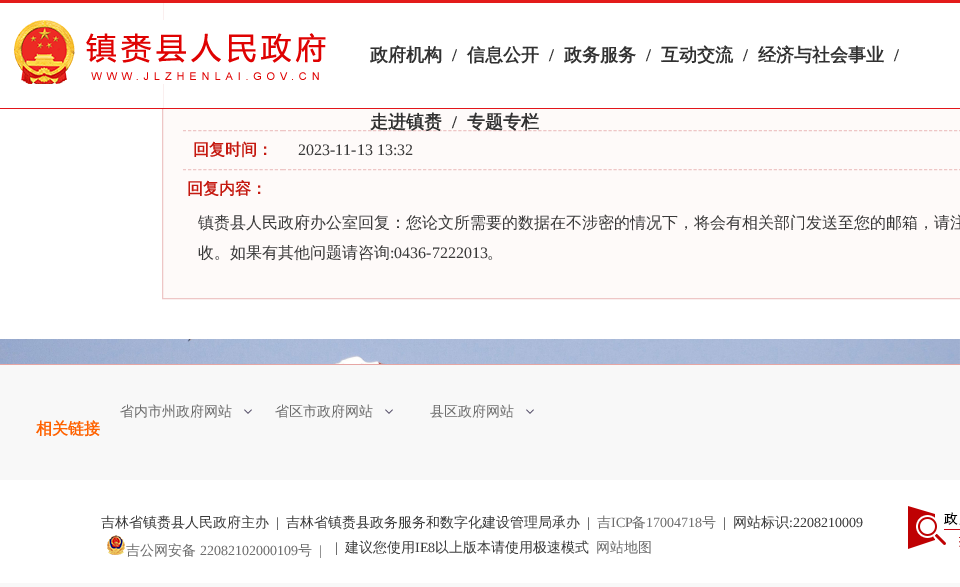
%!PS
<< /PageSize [960 587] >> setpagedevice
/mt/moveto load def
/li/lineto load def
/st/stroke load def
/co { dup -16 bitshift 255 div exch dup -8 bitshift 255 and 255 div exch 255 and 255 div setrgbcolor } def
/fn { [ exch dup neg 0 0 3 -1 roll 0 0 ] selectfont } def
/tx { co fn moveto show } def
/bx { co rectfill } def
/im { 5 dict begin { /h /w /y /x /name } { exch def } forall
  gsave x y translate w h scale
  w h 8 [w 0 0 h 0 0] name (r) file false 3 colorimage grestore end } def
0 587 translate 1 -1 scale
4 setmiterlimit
0 0 960 587 16#FFFFFF bx
(media/1.raw) 0 339 960 25 im
163 109 797 189 16#FEFAF9 bx
16#EEC6C6 co
162.5 -.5 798 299 rectstroke
162 3 1 105 16#FFFFFF bx
0 0 960 3 16#E31B1A bx
0 108 960 1 16#E2151A bx
(media/2.raw) 14 20 312 64 im
16#EEC6C6 co
[3 2.11] 0 setdash
183 130.5 mt 283 130.5 li st
[3 2.01] 0 setdash
283 130.5 mt 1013 130.5 li st
[3 2.11] 0 setdash
183 169.5 mt 283 169.5 li st
[3 2.01] 0 setdash
283 169.5 mt 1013 169.5 li st
0 365 960 222 16#F8F8F8 bx
0 364 960 1 16#E6A6A4 bx
(media/3.raw) 244 409 8 5 im
(media/3.raw) 385 409 8 5 im
(media/3.raw) 526 409 8 5 im
0 480 960 103 16#FFFFFF bx
(media/4.raw) 107 535 18 20 im
(media/5.raw) 908 506 52 43 im
(政府机构) 370 61 /WenQuanYiZenHei-Bold 18 16#313131 tx
(/) 452 61 /LiberationSerif-Bold 18 16#313131 tx
(信息公开) 467 61 /WenQuanYiZenHei-Bold 18 16#313131 tx
(/) 549 61 /LiberationSerif-Bold 18 16#313131 tx
(政务服务) 564 61 /WenQuanYiZenHei-Bold 18 16#313131 tx
(/) 646 61 /LiberationSerif-Bold 18 16#313131 tx
(互动交流) 661 61 /WenQuanYiZenHei-Bold 18 16#313131 tx
(/) 743 61 /LiberationSerif-Bold 18 16#313131 tx
(经济与社会事业) 758 61 /WenQuanYiZenHei-Bold 18 16#313131 tx
(/) 894 61 /LiberationSerif-Bold 18 16#313131 tx
(走进镇赉) 370 128 /WenQuanYiZenHei-Bold 18 16#313131 tx
(/) 452 128 /LiberationSerif-Bold 18 16#313131 tx
(专题专栏) 467 128 /WenQuanYiZenHei-Bold 18 16#313131 tx
(回复时间：) 193 155 /WenQuanYiZenHei-Bold 16 16#C51910 tx
(2023-11-13 13:32) 298 155 /LiberationSerif-Regular 16 16#393939 tx
(回复内容：) 187 194 /WenQuanYiZenHei-Bold 16 16#C51910 tx
(镇赉县人民政府办公室回复：您论文所需要的数据在不涉密的情况下，将会有相关部门发送至您的邮箱，请注) 198 228 /WenQuanYiZenHei-Medium 16 16#393939 tx
(收。如果有其他问题请咨询) 198 258 /WenQuanYiZenHei-Medium 16 16#393939 tx
(:0436-7222013) 390 258 /LiberationSerif-Regular 16 16#393939 tx
(。) 487 258 /WenQuanYiZenHei-Medium 16 16#393939 tx
(省内市州政府网站) 120 416 /WenQuanYiZenHei-Medium 14 16#6C6C6C tx
(省区市政府网站) 275 416 /WenQuanYiZenHei-Medium 14 16#6C6C6C tx
(县区政府网站) 430 416 /WenQuanYiZenHei-Medium 14 16#6C6C6C tx
(相关链接) 36 434 /WenQuanYiZenHei-Bold 16 16#FF6200 tx
(吉林省镇赉县人民政府主办) 101 527 /WenQuanYiZenHei-Medium 14 16#393939 tx
(|) 276 527 /LiberationSerif-Regular 14 16#393939 tx
(吉林省镇赉县政务服务和数字化建设管理局承办) 286 527 /WenQuanYiZenHei-Medium 14 16#393939 tx
(|) 587 527 /LiberationSerif-Regular 14 16#393939 tx
(吉) 597 527 /WenQuanYiZenHei-Medium 14 16#6C6C6C tx
(ICP) 611 527 /LiberationSerif-Regular 14 16#6C6C6C tx
(备) 632 527 /WenQuanYiZenHei-Medium 14 16#6C6C6C tx
(17004718) 646 527 /LiberationSerif-Regular 14 16#6C6C6C tx
(号) 702 527 /WenQuanYiZenHei-Medium 14 16#6C6C6C tx
(|) 723 527 /LiberationSerif-Regular 14 16#393939 tx
(网站标识) 733 527 /WenQuanYiZenHei-Medium 14 16#393939 tx
(:2208210009) 789 527 /LiberationSerif-Regular 14 16#393939 tx
(吉公网安备) 126 555 /WenQuanYiZenHei-Medium 14 16#6C6C6C tx
(22082102000109) 200 555 /LiberationSerif-Regular 14 16#6C6C6C tx
(号) 298 555 /WenQuanYiZenHei-Medium 14 16#6C6C6C tx
(|) 319 555 /LiberationSerif-Regular 14 16#6C6C6C tx
(|) 335 552 /LiberationSerif-Regular 14 16#393939 tx
(建议您使用) 345 552 /WenQuanYiZenHei-Medium 14 16#393939 tx
(IE8) 415 552 /LiberationSerif-Regular 14 16#393939 tx
(以上版本请使用极速模式) 435 552 /WenQuanYiZenHei-Medium 14 16#393939 tx
(网站地图) 596 552 /WenQuanYiZenHei-Medium 14 16#6C6C6C tx
showpage
